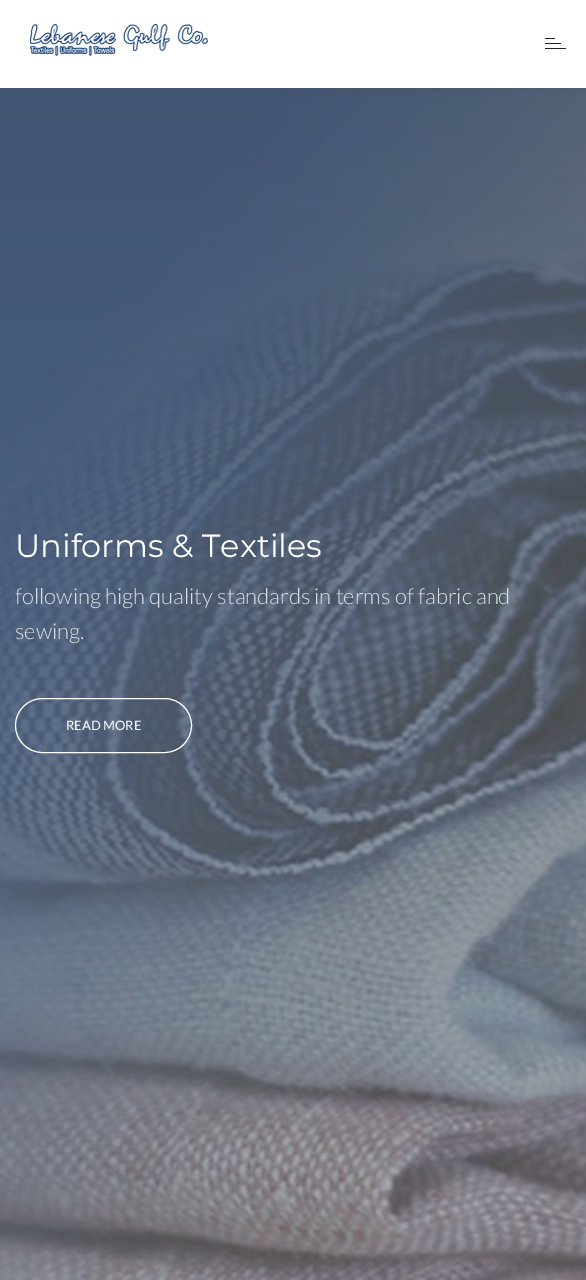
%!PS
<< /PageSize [586 1280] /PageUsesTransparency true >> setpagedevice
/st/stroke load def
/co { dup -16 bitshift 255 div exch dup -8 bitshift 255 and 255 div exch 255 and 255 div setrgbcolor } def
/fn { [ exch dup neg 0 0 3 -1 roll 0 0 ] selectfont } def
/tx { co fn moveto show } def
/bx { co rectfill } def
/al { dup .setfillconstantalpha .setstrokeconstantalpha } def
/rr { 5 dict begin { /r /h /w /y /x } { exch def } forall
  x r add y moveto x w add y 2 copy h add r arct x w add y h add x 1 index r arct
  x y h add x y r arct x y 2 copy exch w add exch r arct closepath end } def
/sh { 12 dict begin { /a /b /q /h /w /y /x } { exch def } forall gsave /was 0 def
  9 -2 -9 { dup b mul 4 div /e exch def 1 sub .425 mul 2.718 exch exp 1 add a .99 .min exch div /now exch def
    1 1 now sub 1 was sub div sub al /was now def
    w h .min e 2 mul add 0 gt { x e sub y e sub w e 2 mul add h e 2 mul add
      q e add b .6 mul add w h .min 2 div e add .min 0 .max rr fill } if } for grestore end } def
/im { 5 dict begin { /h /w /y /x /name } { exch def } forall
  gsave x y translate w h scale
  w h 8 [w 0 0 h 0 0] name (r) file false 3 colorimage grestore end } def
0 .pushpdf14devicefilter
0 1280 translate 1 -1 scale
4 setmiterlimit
0 0 586 1280 16#FFFFFF bx
(media/2.raw) 0 88 586 1192 im
16#222324 co
-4 -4 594 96 0 7.5 .05 sh
0 0 586 88 16#FFFFFF bx
(media/1.raw) 30 24 178 32 im
545 48 21 1 16#222324 bx
545 38 10 1 16#222324 bx
545 43 16 1 16#222324 bx
16#FFFFFF co
15.5 698.5 176 54 27 rr st
(Uniforms & Textiles) 15 557 /Montserrat-Regular 32 16#FFFFFF tx
(following high quality standards in terms of fabric and) 15 604 /Lato-Light 22 16#DCDFE3 tx
(sewing.) 15 639 /Lato-Light 22 16#DCDFE3 tx
(READ MORE) 66 730 /Lato-Regular 13 16#FFFFFF tx
.poppdf14devicefilter showpage
